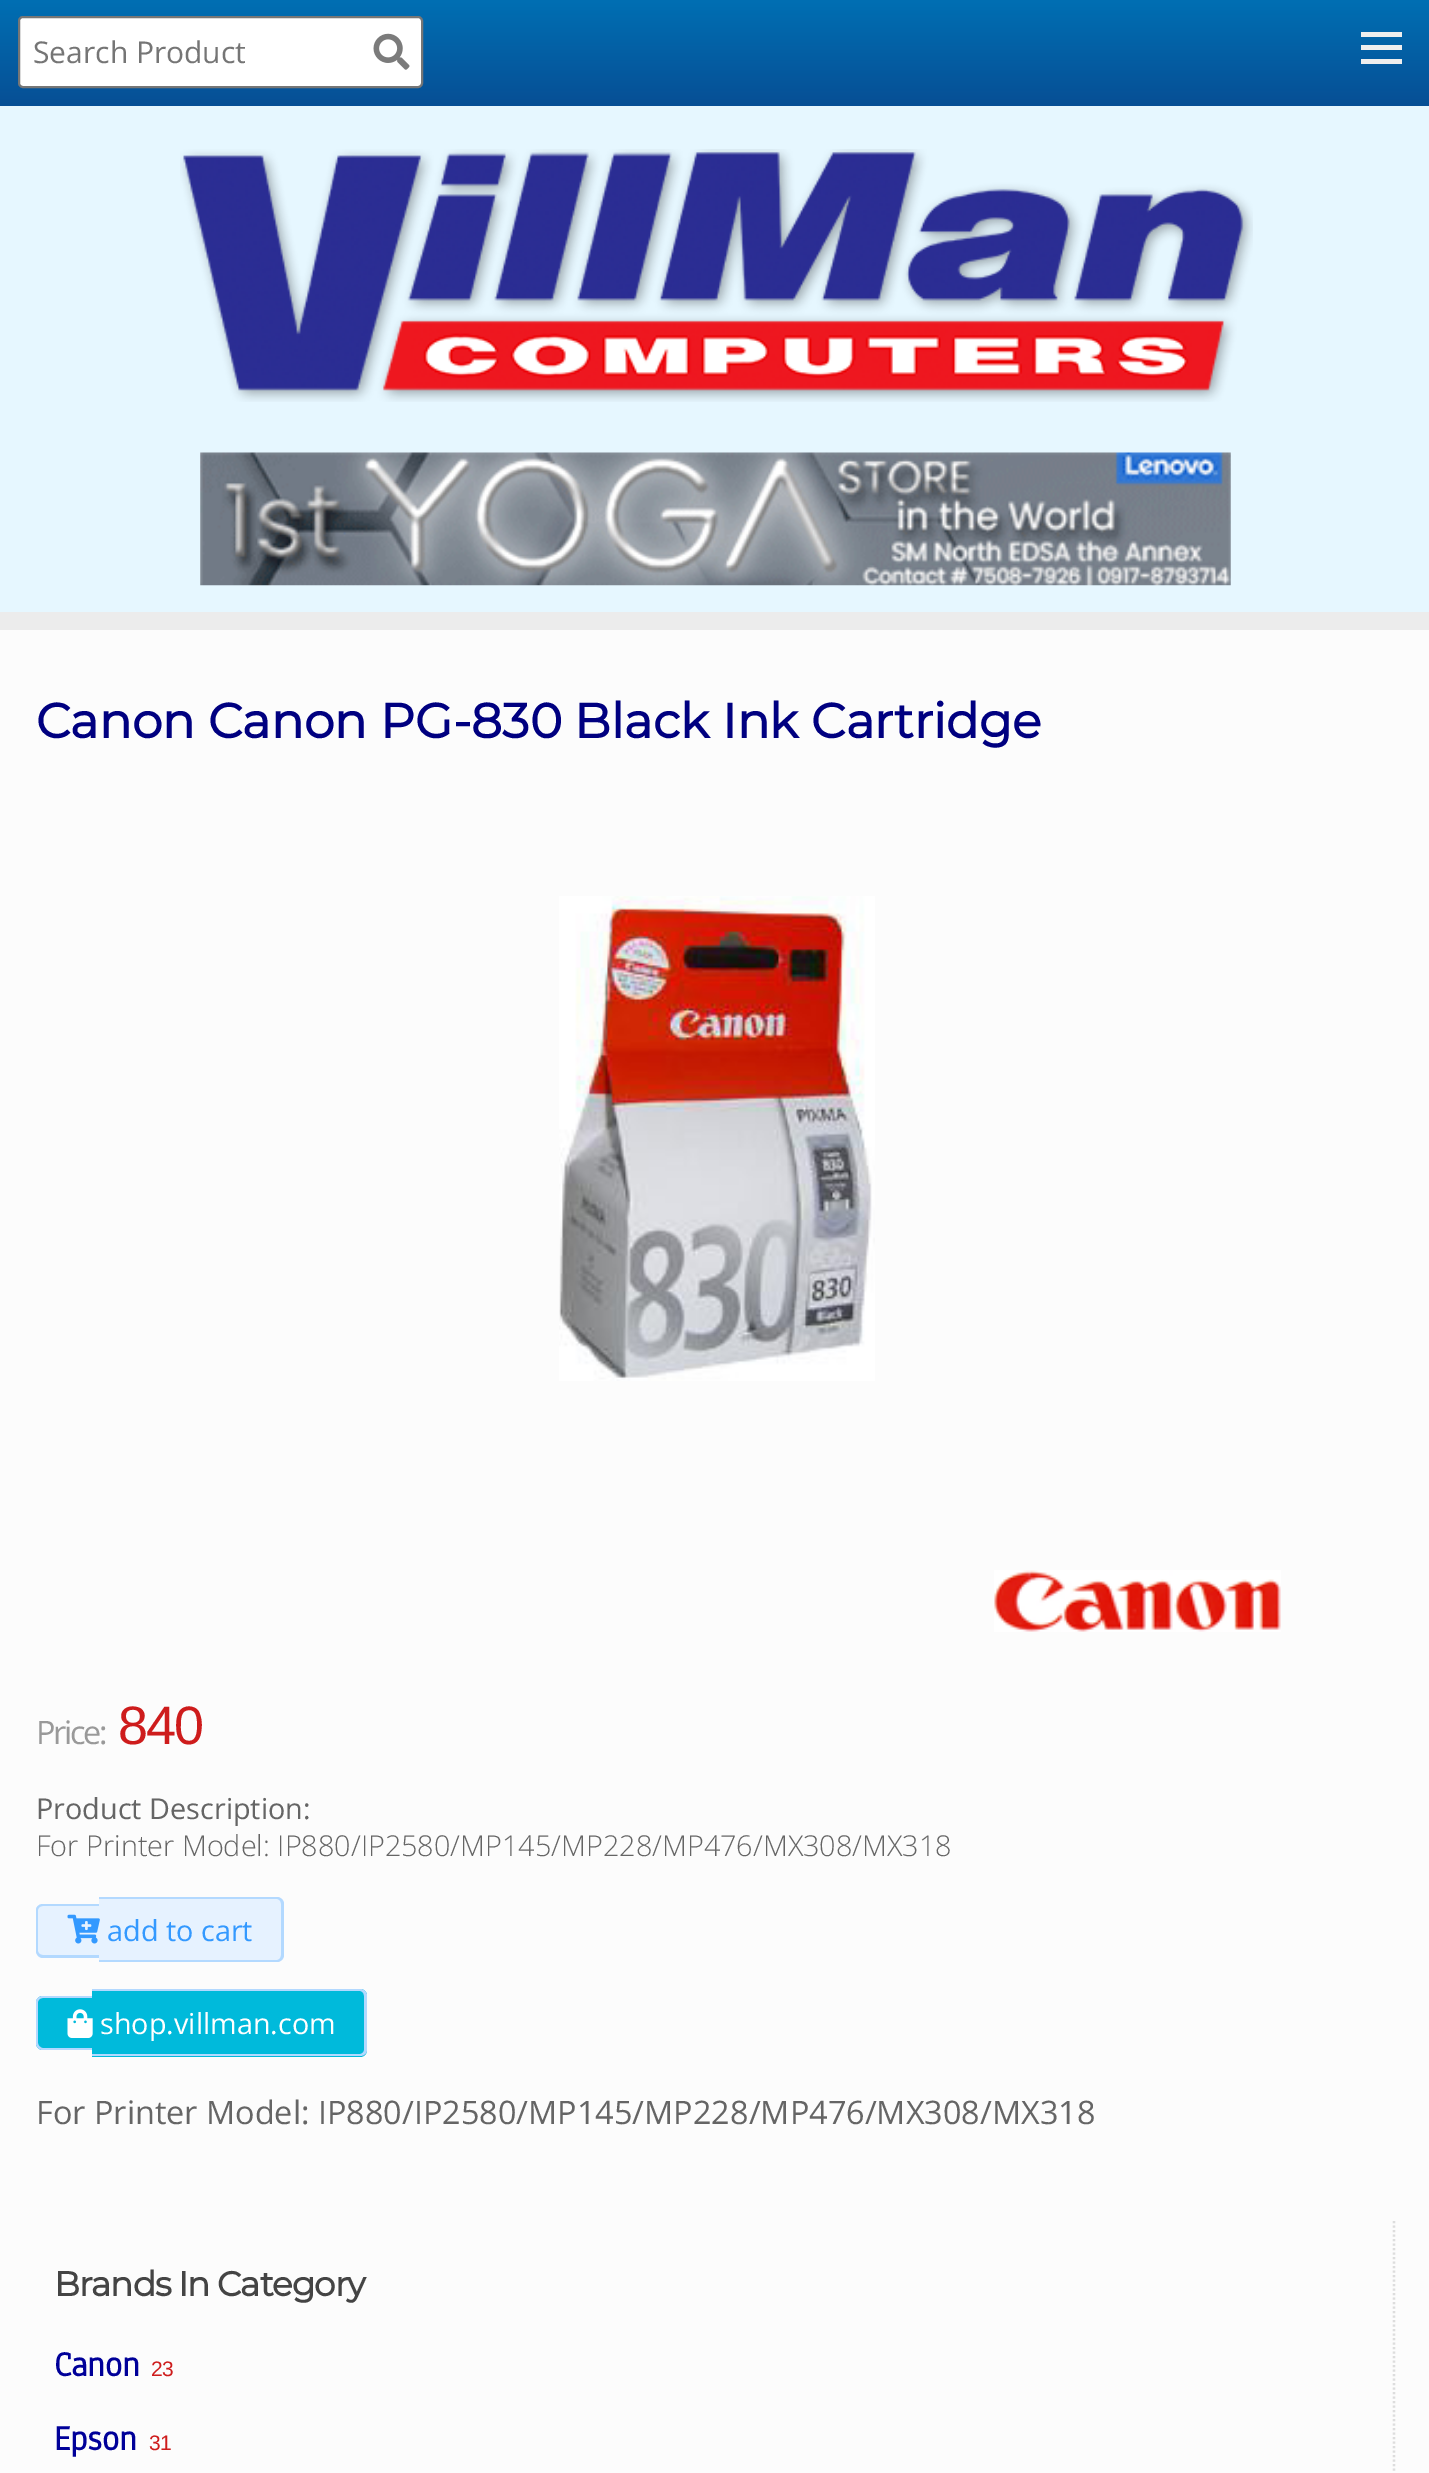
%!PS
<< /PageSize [1429 2473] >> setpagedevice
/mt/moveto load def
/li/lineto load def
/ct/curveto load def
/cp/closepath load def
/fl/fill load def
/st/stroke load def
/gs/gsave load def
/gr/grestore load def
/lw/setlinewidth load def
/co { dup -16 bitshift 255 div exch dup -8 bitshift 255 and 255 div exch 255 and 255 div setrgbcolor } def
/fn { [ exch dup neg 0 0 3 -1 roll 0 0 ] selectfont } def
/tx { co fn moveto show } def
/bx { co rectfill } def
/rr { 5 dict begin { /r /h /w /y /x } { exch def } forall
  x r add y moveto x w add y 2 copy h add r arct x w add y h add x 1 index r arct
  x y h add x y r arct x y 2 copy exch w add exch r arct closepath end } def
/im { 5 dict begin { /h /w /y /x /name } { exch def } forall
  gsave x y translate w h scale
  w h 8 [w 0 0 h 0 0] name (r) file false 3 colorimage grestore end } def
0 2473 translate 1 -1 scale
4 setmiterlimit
0 0 1429 2473 16#FCFCFC bx
0 106 1429 506 16#E6F7FF bx
gs 0 0 mt 1429 0 li 1429 106 li 0 106 li cp clip newpath
<< /ShadingType 2 /ColorSpace /DeviceRGB /Coords [716 -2.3 716 106] /Extend [true true] /Function << /FunctionType 2 /Domain [0 1] /C0 [0 .439 .706] /C1 [.027 .31 .584] /N 1 >> >> shfill gr
16#FFFFFF co
19 17 403 70 4 rr gs fl gr
16#767676 co
2 lw
st
(media/1.raw) 373 33 37 37 im
1361 32 41 5 16#EEEEEE bx
1361 45 41 5 16#EEEEEE bx
1361 59 41 5 16#EEEEEE bx
(media/2.raw) 180 149 1073 253 im
(media/3.raw) 200 452 1031 134 im
0 612 1429 18 16#ECECEC bx
(media/4.raw) 559 896 316 485 im
(media/5.raw) 994 1570 287 62 im
16#E6F2FF co
43 1904 mt 99 1904 li 99 1958 li 43 1958 li 39 1958 36 1955 36 1951 ct 36 1911 li 36 1907 39 1904 43 1904 ct cp fl
16#B3D9FF co
43 1904 mt 99 1904 li 99 1958 li 43 1958 li 39 1958 36 1954 36 1951 ct 36 1910 li 36 1907 39 1904 43 1904 ct cp 43 1906 mt 99 1906 li 99 1955 li 43 1955 li 40 1955 38 1953 38 1951 ct 38 1910 li 38 1908 40 1906 43 1906 ct cp eofill
16#E6F2FF co
99 1897 mt 277 1897 li 281 1897 284 1900 284 1904 ct 284 1955 li 284 1959 281 1962 277 1962 ct 99 1962 li cp fl
16#B3D9FF co
99 1897 mt 277 1897 li 280 1897 284 1900 284 1904 ct 284 1955 li 284 1959 280 1962 277 1962 ct 99 1962 li cp 99 1899 mt 277 1899 li 279 1899 281 1901 281 1904 ct 281 1955 li 281 1958 279 1960 277 1960 ct 99 1960 li cp eofill
(media/6.raw) 67 1914 33 30 im
16#00BADB co
43 1996 mt 92 1996 li 92 2050 li 43 2050 li 39 2050 36 2047 36 2043 ct 36 2003 li 36 1999 39 1996 43 1996 ct cp fl
16#B3D9FF co
43 1996 mt 92 1996 li 92 2050 li 43 2050 li 39 2050 36 2047 36 2043 ct 36 2002 li 36 1999 39 1996 43 1996 ct cp 43 1998 mt 92 1998 li 92 2048 li 43 2048 li 40 2048 38 2045 38 2043 ct 38 2002 li 38 2000 40 1998 43 1998 ct cp eofill
16#00BADB co
92 1989 mt 360 1989 li 364 1989 367 1992 367 1996 ct 367 2050 li 367 2054 364 2057 360 2057 ct 92 2057 li cp fl
16#B3D9FF co
92 1989 mt 360 1989 li 364 1989 367 1992 367 1996 ct 367 2050 li 367 2053 364 2056 360 2056 ct 92 2056 li cp 92 1991 mt 360 1991 li 362 1991 364 1993 364 1996 ct 364 2050 li 364 2052 362 2054 360 2054 ct 92 2054 li cp eofill
(media/7.raw) 67 2009 26 29 im
16#DDDDDD co
2.2 lw
[2.25 2.25] 0 setdash
1394 2221 mt 1394 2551.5 li st
(Search Product) 33 63 /OpenSans-Regular 30 16#757575 tx
(Canon Canon PG-830 Black Ink Cartridge) 36 738 /Montserrat-Bold 48.6 16#000080 tx
/OpenSans-Regular 32.4 fn
16#999999 co
36 1744 mt -2.25 0 (Price:) ashow
/LiberationSans-Regular 54 fn
16#CE1C1C co
118 1744 mt -2.25 0 (840) ashow
(Product Description:) 36 1819 /OpenSans-Regular 28.8 16#656565 tx
(For Printer Model: IP880/IP2580/MP145/MP228/MP476/MX308/MX318) 36 1856 /OpenSans-Light 28.8 16#656565 tx
(add to cart) 107 1941 /OpenSans-Regular 28.8 16#3399FF tx
(shop.villman.com) 100 2034 /OpenSans-Regular 28.8 16#FFFFFF tx
(For Printer Model: IP880/IP2580/MP145/MP228/MP476/MX308/MX318) 36 2124 /OpenSans-Regular 32.4 16#656565 tx
/Montserrat-Bold 34.25 fn
16#444444 co
54 2296 mt -1.1 0 (Brands In Category) ashow
(Canon) 54 2376 /Anaheim-Bold 36 16#000099 tx
/LiberationSans-Regular 21 fn
16#CE1C1C co
151 2376 mt -1.1 0 (23) ashow
(Epson) 54 2450 /Anaheim-Bold 36 16#000099 tx
/LiberationSans-Regular 21 fn
16#CE1C1C co
149 2450 mt -1.1 0 (31) ashow
showpage
